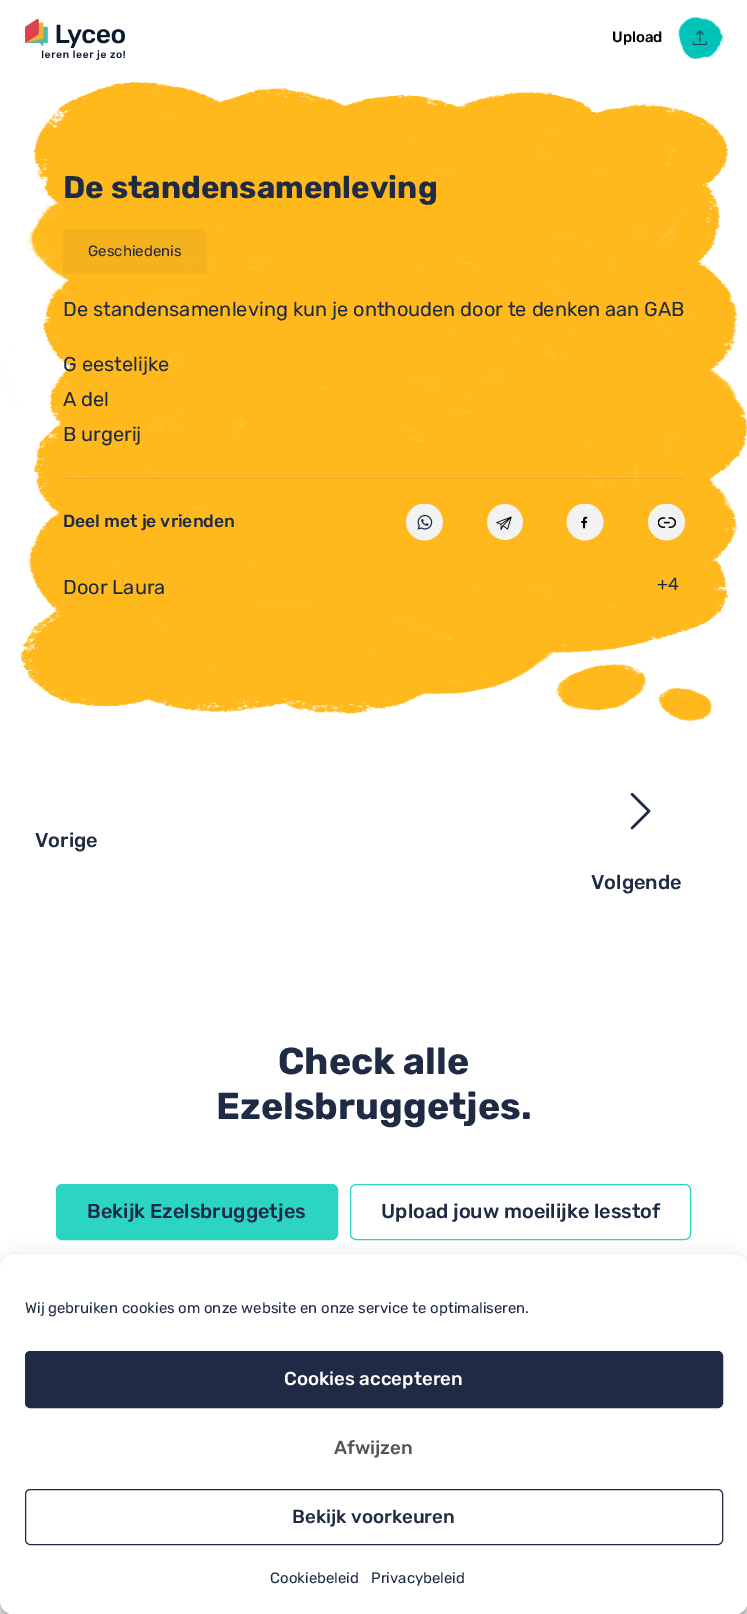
%!PS
<< /PageSize [747 1614] /PageUsesTransparency true >> setpagedevice
/fl/fill load def
/st/stroke load def
/gs/gsave load def
/gr/grestore load def
/co { dup -16 bitshift 255 div exch dup -8 bitshift 255 and 255 div exch 255 and 255 div setrgbcolor } def
/fn { [ exch dup neg 0 0 3 -1 roll 0 0 ] selectfont } def
/tx { co fn moveto show } def
/bx { co rectfill } def
/al { dup .setfillconstantalpha .setstrokeconstantalpha } def
/rr { 5 dict begin { /r /h /w /y /x } { exch def } forall
  x r add y moveto x w add y 2 copy h add r arct x w add y h add x 1 index r arct
  x y h add x y r arct x y 2 copy exch w add exch r arct closepath end } def
/sh { 12 dict begin { /a /b /q /h /w /y /x } { exch def } forall gsave /was 0 def
  9 -2 -9 { dup b mul 4 div /e exch def 1 sub .425 mul 2.718 exch exp 1 add a .99 .min exch div /now exch def
    1 1 now sub 1 was sub div sub al /was now def
    w h .min e 2 mul add 0 gt { x e sub y e sub w e 2 mul add h e 2 mul add
      q e add b .6 mul add w h .min 2 div e add .min 0 .max rr fill } if } for grestore end } def
/im { 5 dict begin { /h /w /y /x /name } { exch def } forall
  gsave x y translate w h scale
  w h 8 [w 0 0 h 0 0] name (r) file false 3 colorimage grestore end } def
0 .pushpdf14devicefilter
0 1614 translate 1 -1 scale
4 setmiterlimit
0 0 747 1614 16#FFFFFF bx
(media/1.raw) 25 19 100 41 im
(media/2.raw) 678 17 45 42 im
(media/3.raw) 3 81 744 641 im
0.05 al
63 229 143 45 16#1F2A44 bx
0.1 al
63 478 622 1 16#1F2A44 bx
1 al
(media/4.raw) 406 504 37 37 im
(media/5.raw) 487 504 36 36 im
(media/6.raw) 566 504 38 37 im
(media/7.raw) 648 504 37 37 im
(media/8.raw) 630 792 21 38 im
16#2CD4C4 co
56.5 1184.5 281 55 5.5 rr gs fl gr
st
350.5 1184.5 340 55 5.5 rr st
16#000000 co
0 1261 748 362 15 4 .23 sh
0 1266 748 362 15 12.5 .19 sh
16#FFFFFF co
0 1254 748 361 15 rr fl
16#1F2A44 co
25.5 1351.5 697 56 4.5 rr gs fl gr
st
25.5 1489.5 697 55 4.5 rr st
(Upload) 612 42 /Rubik-Medium 15 16#000000 tx
(De standensamenleving) 63 198 /Rubik-Bold 31.25 16#1F2A44 tx
(Geschiedenis) 88 256 /Rubik-Regular 15 16#1F2A44 tx
(De standensamenleving kun je onthouden door te denken aan GAB) 63 316 /Rubik-Regular 20 16#1F2A44 tx
(G eestelijke) 63 371 /Rubik-Regular 20 16#1F2A44 tx
(A del) 63 406 /Rubik-Regular 20 16#1F2A44 tx
(B urgerij) 63 441 /Rubik-Regular 20 16#1F2A44 tx
(Deel met je vrienden) 63 527 /Rubik-Medium 17.5 16#1F2A44 tx
(Door Laura) 63 594 /Rubik-Regular 20 16#1F2A44 tx
(+4) 657 590 /Rubik-Regular 17.5 16#1F2A44 tx
(Vorige) 35 847 /Rubik-Medium 20 16#1F2A44 tx
(Volgende) 591 889 /Rubik-Medium 20 16#1F2A44 tx
(Check alle) 278 1074 /Rubik-Bold 37.5 16#1F2A44 tx
(Ezelsbruggetjes.) 216 1119 /Rubik-Bold 37.5 16#1F2A44 tx
(Bekijk Ezelsbruggetjes) 87 1218 /Rubik-Medium 20 16#1F2A44 tx
(Upload jouw moeilijke lesstof) 381 1218 /Rubik-Medium 20 16#1F2A44 tx
(Wij gebruiken cookies om onze website en onze service te optimaliseren.) 25 1313 /Rubik-Regular 15 16#1F2A44 tx
(Cookies accepteren) 284 1385 /Rubik-Medium 18.75 16#FFFFFF tx
(Afwijzen) 334 1454 /Rubik-Medium 18.75 16#545454 tx
(Bekijk voorkeuren) 292 1523 /Rubik-Medium 18.75 16#1F2A44 tx
(Cookiebeleid) 270 1583 /Rubik-Regular 15 16#1F2A44 tx
(Privacybeleid) 371 1583 /Rubik-Regular 15 16#1F2A44 tx
.poppdf14devicefilter showpage
